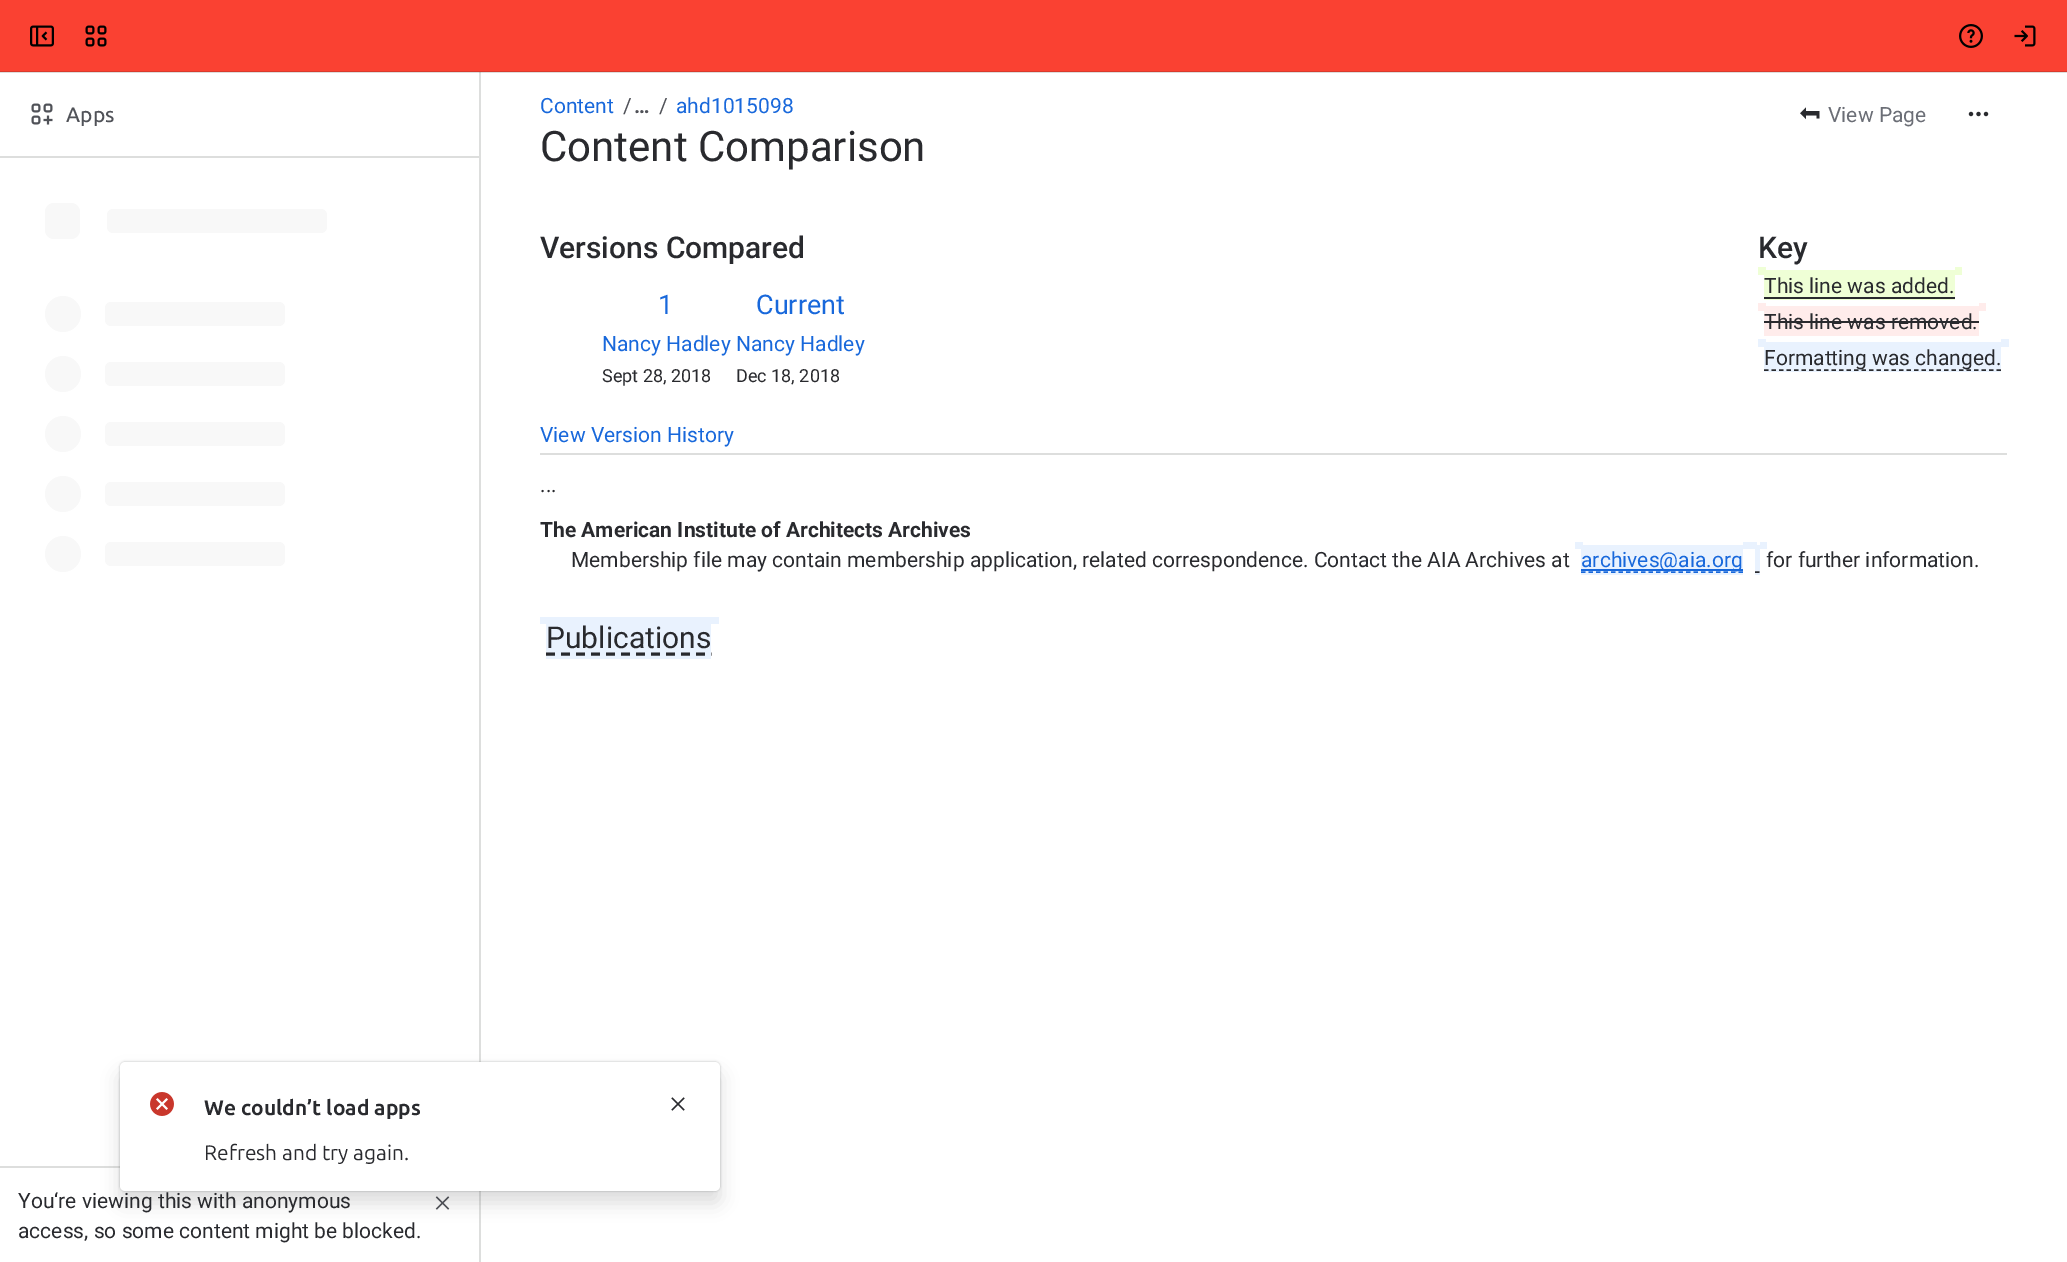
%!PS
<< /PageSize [2067 1262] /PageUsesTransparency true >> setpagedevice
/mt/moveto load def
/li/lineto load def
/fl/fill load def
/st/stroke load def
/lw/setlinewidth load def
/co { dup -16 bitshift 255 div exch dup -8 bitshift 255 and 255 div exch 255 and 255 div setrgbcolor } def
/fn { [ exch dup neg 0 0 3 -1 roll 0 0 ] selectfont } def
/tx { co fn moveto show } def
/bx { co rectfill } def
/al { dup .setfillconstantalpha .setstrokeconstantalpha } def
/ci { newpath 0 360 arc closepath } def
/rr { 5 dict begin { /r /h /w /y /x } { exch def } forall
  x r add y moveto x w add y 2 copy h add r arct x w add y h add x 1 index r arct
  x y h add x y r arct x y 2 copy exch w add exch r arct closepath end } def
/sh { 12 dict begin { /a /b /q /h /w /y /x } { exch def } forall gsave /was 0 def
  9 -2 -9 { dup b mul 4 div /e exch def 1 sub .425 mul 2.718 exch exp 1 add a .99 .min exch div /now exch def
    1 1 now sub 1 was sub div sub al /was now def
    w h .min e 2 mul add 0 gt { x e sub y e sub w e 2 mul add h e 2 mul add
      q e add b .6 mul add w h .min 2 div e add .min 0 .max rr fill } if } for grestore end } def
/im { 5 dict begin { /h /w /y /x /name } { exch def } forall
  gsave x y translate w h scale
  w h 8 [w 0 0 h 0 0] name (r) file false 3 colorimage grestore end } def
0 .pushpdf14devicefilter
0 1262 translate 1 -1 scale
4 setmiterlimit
0 0 2067 1262 16#FFFFFF bx
0 72 2067 1 16#DDDEDD bx
0 0 2067 71 16#FA4132 bx
0 71 2067 1 16#D93A2D bx
(media/1.raw) 30 25 24 22 im
(media/2.raw) 85 25 22 22 im
(media/3.raw) 1959 24 24 24 im
(media/4.raw) 2014 25 22 22 im
479 72 2 1190 16#DDDEDD bx
479 72 2 1 16#C0C1C0 bx
(media/5.raw) 31 103 22 22 im
0 156 479 2 16#DDDEDD bx
16#F8F8F8 co
45 203 35 36 9 rr fl
107 209 220 24 6 rr fl
63 314 18 ci fl
105 302 180 24 6 rr fl
63 374 18 ci fl
105 362 180 24 6 rr fl
63 434 18 ci fl
105 422 180 24 6 rr fl
63 494 18 ci fl
105 482 180 24 6 rr fl
63 554 18 ci fl
105 542 180 24 6 rr fl
0 1166 120 2 16#DDDEDD bx
(media/6.raw) 435 1196 15 14 im
(media/7.raw) 1800 107 20 13 im
(media/8.raw) 1968 111 21 6 im
540 453 1467 2 16#DDDEDD bx
1758 267 8 8 16#EFFFD6 bx
1764 270 191 30 16#EFFFD6 bx
1955 267 7 8 16#EFFFD6 bx
1764 297 191 2 16#292A2E bx
1758 303 8 8 16#FFECEB bx
1764 306 215 30 16#FFECEB bx
1979 303 7 8 16#FFECEB bx
1764 321 215 2 16#292A2E bx
1758 339 8 8 16#E9F2FE bx
1764 342 237 30 16#E9F2FE bx
2001 339 8 8 16#E9F2FE bx
16#292A2E co
1.5 lw
[4.5 3] 0 setdash
1764 370 mt 2001 370 li st
1575 542 8 7 16#E9F2FE bx
1581 545 162 30 16#E9F2FE bx
1743 542 14 7 16#E9F2FE bx
16#1868DB co
1581 572 mt 1743 572 li st
1581 569 162 2 16#1868DB bx
1755 545 5 30 16#E9F2FE bx
1760 542 7 7 16#E9F2FE bx
16#292A2E co
[] 0 setdash
1755 572 mt 1759.5 572 li st
540 617 8 7 16#E9F2FE bx
546 617 165 42 16#E9F2FE bx
711 617 8 7 16#E9F2FE bx
16#292A2E co
3 lw
[9 6] 0 setdash
546 654 mt 711.5 654 li st
16#1E1F21 co
120 1062 600 129 5 1 .31 sh
120 1074 600 129 5 9 .15 sh
16#FFFFFF co
120 1062 600 129 5 rr fl
(media/9.raw) 150 1092 24 24 im
(media/10.raw) 671 1097 14 14 im
(Apps) 66 122 /Ubuntu-Medium 21 16#505258 tx
(You‘re viewing this with anonymous) 18 1208 /Roboto-Regular 21 16#292A2E tx
(access, so some content might be blocked.) 18 1238 /Roboto-Regular 21 16#292A2E tx
(Content) 540 113 /Roboto-Regular 21 16#1868DB tx
(/) 623 113 /Roboto-Regular 21 16#505258 tx
(…) 634 113 /Roboto-Bold 21 16#505258 tx
(/) 659 113 /Roboto-Regular 21 16#505258 tx
(ahd1015098) 676 113 /Roboto-Regular 21 16#1868DB tx
(Content Comparison) 540 161 /Roboto-Regular 42 16#292A2E tx
(View Page) 1828 122 /Roboto-Regular 21 16#6B6E76 tx
(Versions Compared) 540 258 /Roboto-Medium 30 16#292A2E tx
(Key) 1758 258 /Roboto-Medium 30 16#292A2E tx
(This line was added.) 1764 293 /Roboto-Regular 21 16#292A2E tx
(This line was removed.) 1764 329 /Roboto-Regular 21 16#292A2E tx
(Formatting was changed.) 1764 365 /Roboto-Regular 21 16#292A2E tx
(1) 658 314 /Roboto-Regular 27 16#1868DB tx
(Current) 756 314 /Roboto-Regular 27 16#1868DB tx
(Nancy Hadley) 602 351 /Roboto-Regular 21 16#1868DB tx
(Nancy Hadley) 736 351 /Roboto-Regular 21 16#1868DB tx
(Sept 28, 2018) 602 382 /Roboto-Regular 18 16#292A2E tx
(Dec 18, 2018) 736 382 /Roboto-Regular 18 16#292A2E tx
(View Version History) 540 442 /Roboto-Regular 21 16#1868DB tx
(...) 540 492 /Roboto-Regular 21 16#292A2E tx
(The American Institute of Architects Archives) 540 537 /Roboto-Bold 21 16#292A2E tx
(Membership file may contain membership application, related correspondence. Contact the AIA Archives at) 571 567 /Roboto-Regular 21 16#292A2E tx
(archives@aia.org) 1581 567 /Roboto-Regular 21 16#1868DB tx
(for further information.) 1766 567 /Roboto-Regular 21 16#292A2E tx
(Publications) 546 648 /Roboto-Regular 30 16#292A2E tx
(We couldn’t load apps) 204 1115 /Ubuntu-Bold 21 16#292A2E tx
(Refresh and try again.) 204 1160 /Ubuntu-Regular 21 16#292A2E tx
.poppdf14devicefilter showpage
